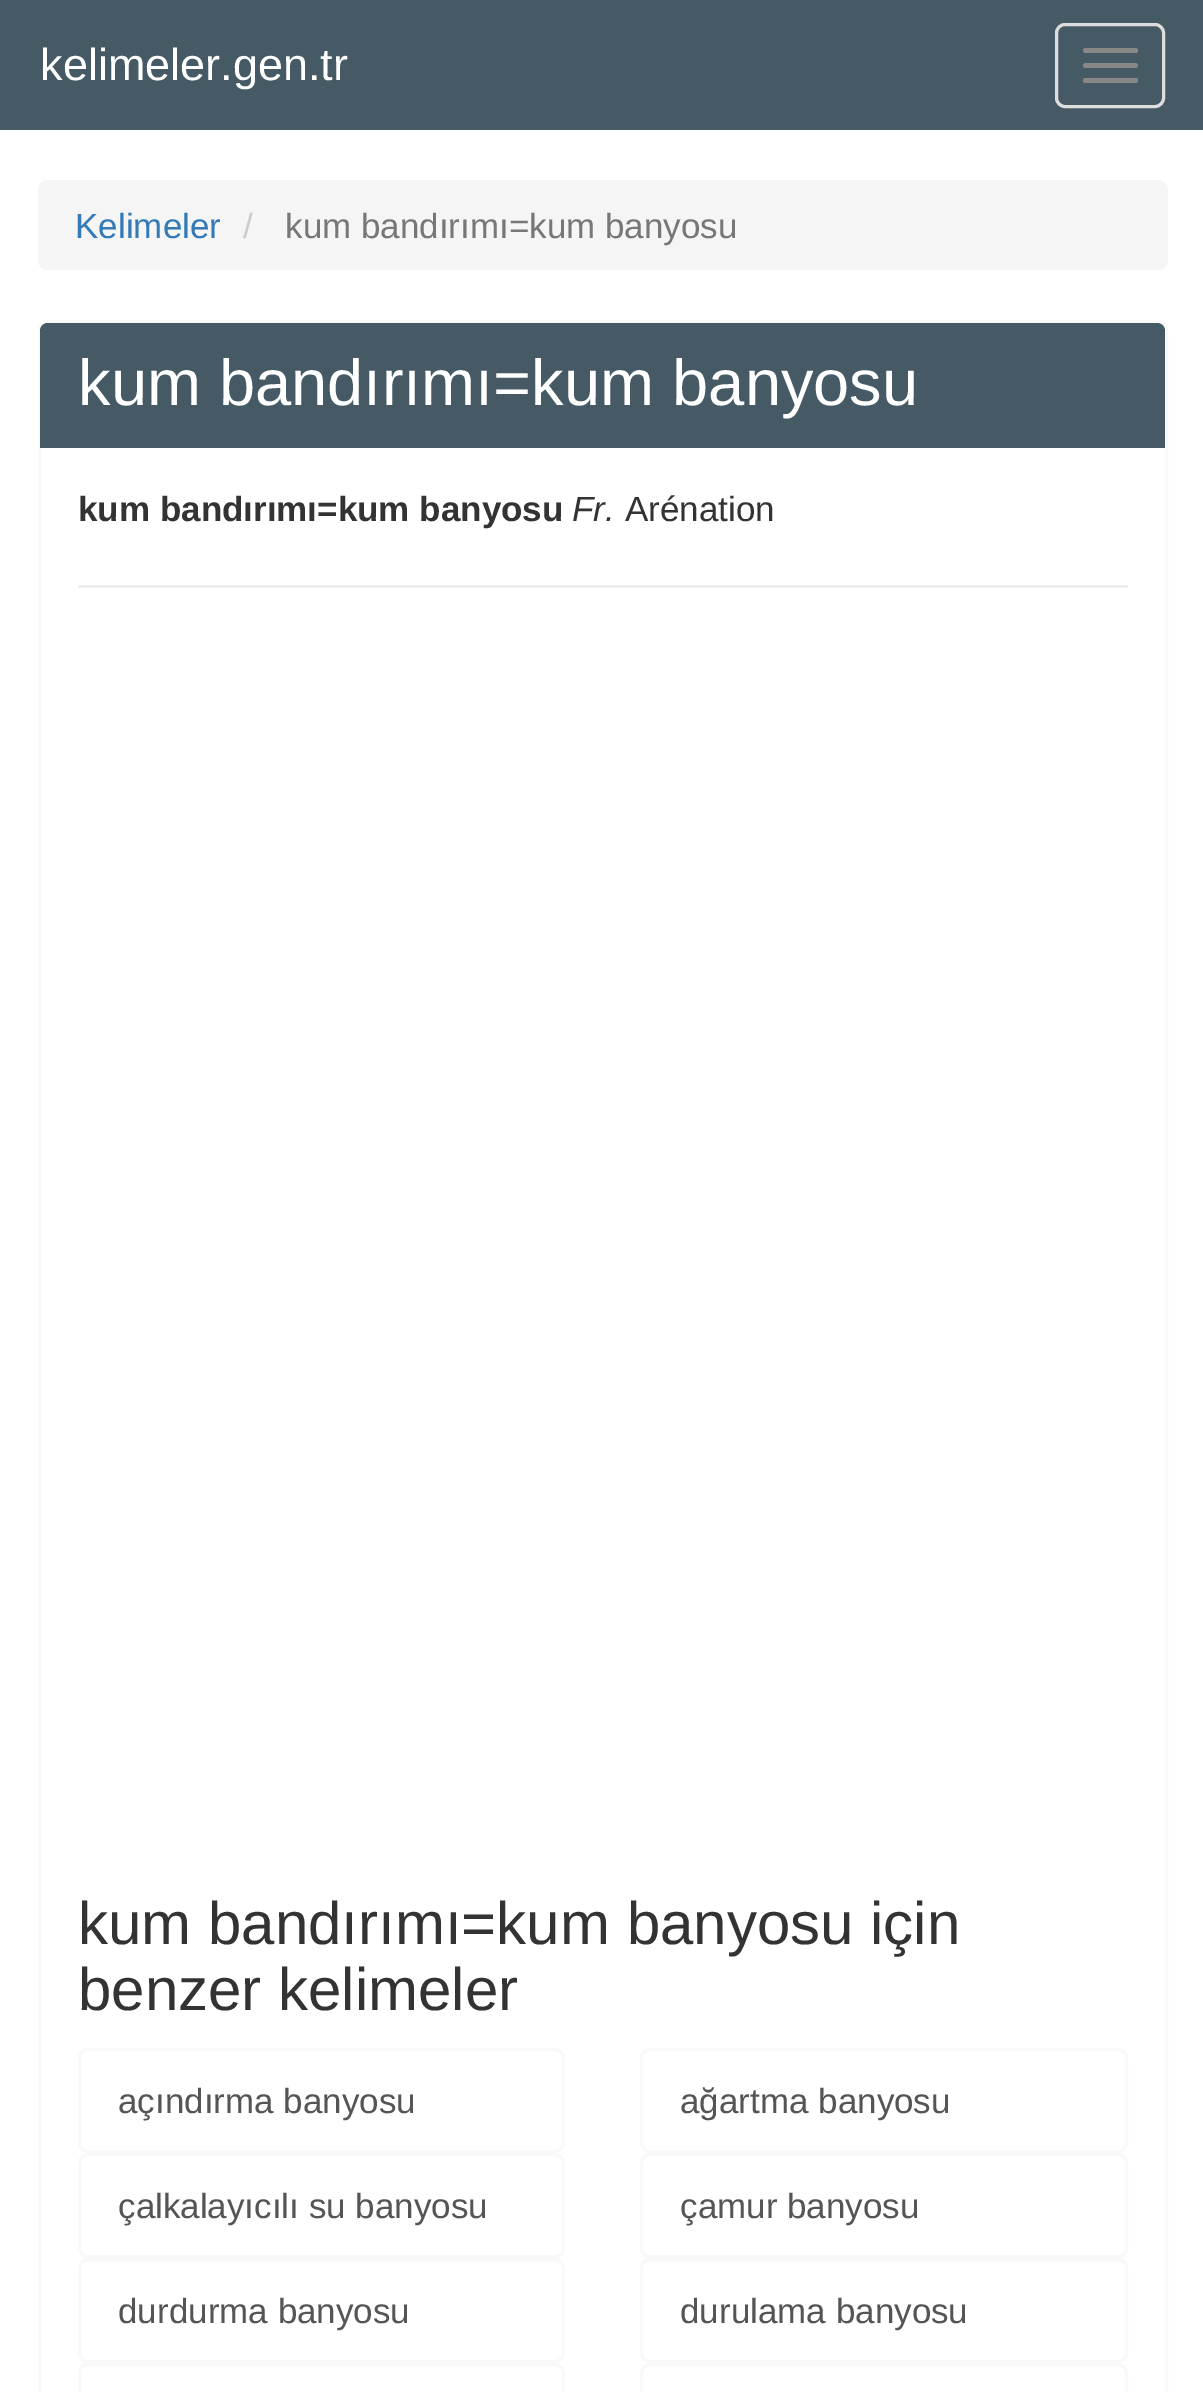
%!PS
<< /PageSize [1203 2392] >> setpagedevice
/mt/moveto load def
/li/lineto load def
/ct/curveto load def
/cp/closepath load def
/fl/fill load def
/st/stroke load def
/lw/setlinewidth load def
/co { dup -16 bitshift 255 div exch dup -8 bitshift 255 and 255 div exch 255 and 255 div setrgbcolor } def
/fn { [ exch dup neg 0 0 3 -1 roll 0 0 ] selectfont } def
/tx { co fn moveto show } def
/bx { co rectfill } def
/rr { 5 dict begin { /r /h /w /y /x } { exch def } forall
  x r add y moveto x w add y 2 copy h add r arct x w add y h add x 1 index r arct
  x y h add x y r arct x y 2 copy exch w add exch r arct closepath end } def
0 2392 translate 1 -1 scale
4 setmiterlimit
0 0 1203 2392 16#FFFFFF bx
0 0 1203 130 16#455A64 bx
16#DDDDDD co
3 lw
1056.5 24.5 107 82 8.5 rr st
16#888888 co
1083 48 55 5 2.5 rr fl
1083 63 55 5 2.5 rr fl
1083 78 55 5 2.5 rr fl
16#F5F5F5 co
38 180 1130 90 10 rr fl
16#F9F9F9 co
39.5 321.5 1127 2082 8.5 rr st
16#455A64 co
48 323 mt 1157 323 li 1161.5 323 1165 326.5 1165 331 ct 1165 448 li 40 448 li 40 331 li 40 326.5 43.5 323 48 323 ct cp fl
78 585 1050 3 16#EEEEEE bx
16#F9F9F9 co
79.5 2049.5 484 102 8.5 rr st
641.5 2049.5 485 102 8.5 rr st
79.5 2154.5 484 102 8.5 rr st
641.5 2154.5 485 102 8.5 rr st
79.5 2259.5 484 102 8.5 rr st
641.5 2259.5 485 102 8.5 rr st
79.5 2364.5 484 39 8.5 rr st
641.5 2364.5 485 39 8.5 rr st
(kelimeler.gen.tr) 40 80 /LiberationSans-Regular 45 16#FFFFFF tx
(Kelimeler) 75 238 /LiberationSans-Regular 35 16#337AB7 tx
(/) 243 238 /LiberationSans-Regular 35 16#CCCCCC tx
(kum bandırımı=kum banyosu) 285 238 /LiberationSans-Regular 35 16#777777 tx
(kum bandırımı=kum banyosu) 78 405 /LiberationSans-Regular 65 16#FFFFFF tx
(kum bandırımı=kum banyosu) 78 521 /LiberationSans-Bold 35 16#333333 tx
(Fr.) 572 521 /LiberationSans-Italic 35 16#333333 tx
(Arénation) 625 521 /LiberationSans-Regular 35 16#333333 tx
(kum bandırımı=kum banyosu için) 78 1944 /LiberationSans-Regular 60 16#333333 tx
(benzer kelimeler) 78 2010 /LiberationSans-Regular 60 16#333333 tx
(açındırma banyosu) 118 2113 /LiberationSans-Regular 35 16#555555 tx
(ağartma banyosu) 680 2113 /LiberationSans-Regular 35 16#555555 tx
(çalkalayıcılı su banyosu) 118 2218 /LiberationSans-Regular 35 16#555555 tx
(çamur banyosu) 680 2218 /LiberationSans-Regular 35 16#555555 tx
(durdurma banyosu) 118 2323 /LiberationSans-Regular 35 16#555555 tx
(durulama banyosu) 680 2323 /LiberationSans-Regular 35 16#555555 tx
showpage
